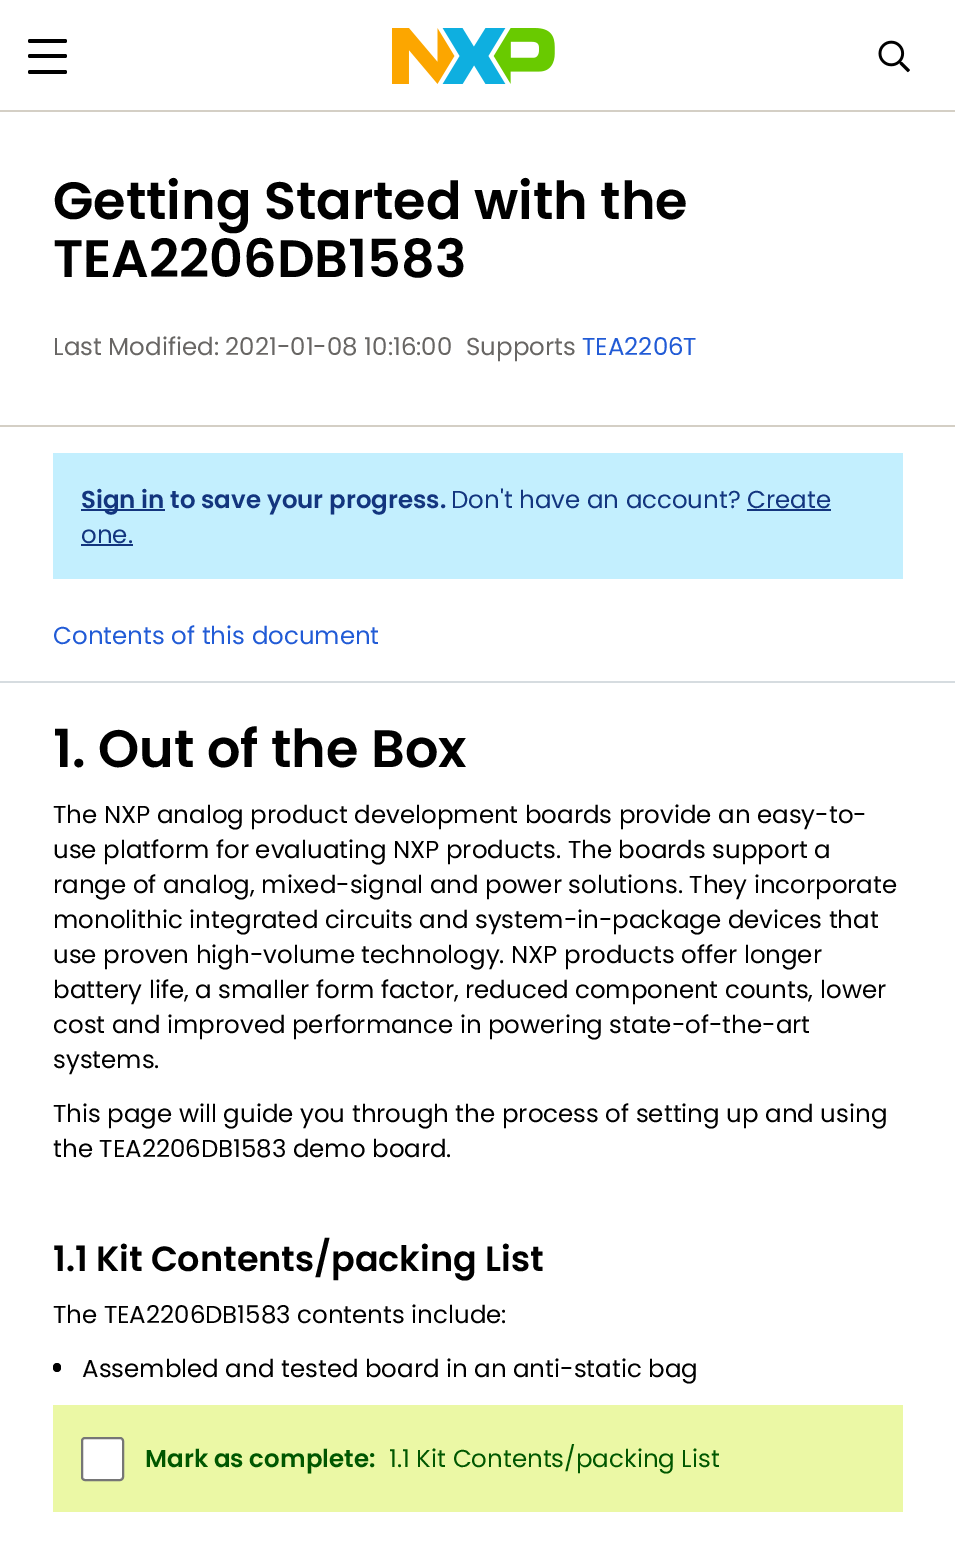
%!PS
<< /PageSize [955 1541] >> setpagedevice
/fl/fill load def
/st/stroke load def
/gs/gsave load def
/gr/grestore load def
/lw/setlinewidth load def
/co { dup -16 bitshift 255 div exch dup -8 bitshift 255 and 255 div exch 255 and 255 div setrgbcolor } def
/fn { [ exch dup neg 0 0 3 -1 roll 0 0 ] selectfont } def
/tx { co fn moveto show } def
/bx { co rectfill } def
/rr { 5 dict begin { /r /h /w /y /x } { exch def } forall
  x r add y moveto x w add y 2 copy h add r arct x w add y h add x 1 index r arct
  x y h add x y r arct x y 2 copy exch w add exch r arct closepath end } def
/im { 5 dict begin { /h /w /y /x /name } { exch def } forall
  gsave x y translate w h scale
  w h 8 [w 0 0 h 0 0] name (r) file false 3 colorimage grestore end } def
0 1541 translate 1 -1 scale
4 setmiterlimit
0 0 955 1541 16#FFFFFF bx
0 110 955 2 16#D4CFC5 bx
16#000000 co
28 39 39 4 2 rr fl
28 54 39 4 2 rr fl
28 70 39 4 2 rr fl
(media/1.raw) 392 28 163 56 im
(media/2.raw) 878 40 32 33 im
0 425 955 2 16#D4CFC5 bx
53 453 850 126 16#C3EFFE bx
81 509 84 2 16#13357E bx
747 509 84 2 16#13357E bx
81 544 52 2 16#13357E bx
0 681 955 2 16#D6DCE0 bx
16#000000 co
53 1363 8 9 4 rr fl
53 1405 850 107 16#EBF8A5 bx
16#FFFFFF co
82 1438 41 42 3 rr gs fl gr
16#767676 co
2 lw
st
(Getting Started with the) 53 219 /Poppins-SemiBold 52.5 16#000000 tx
(TEA2206DB1583) 53 277 /Poppins-SemiBold 52.5 16#000000 tx
(Last Modified: 2021-01-08 10:16:00) 53 355 /Poppins-Regular 24.5 16#686664 tx
(Supports) 466 355 /Poppins-Regular 24.5 16#686664 tx
(TEA2206T) 582 355 /Poppins-Regular 24.5 16#215BD6 tx
(Sign in to save your progress.) 81 508 /Poppins-SemiBold 24.5 16#13357E tx
(Don't have an account? Create) 451 508 /Poppins-Regular 24.5 16#13357E tx
(one.) 81 543 /Poppins-Regular 24.5 16#13357E tx
(Contents of this document) 53 644 /Poppins-Regular 24.5 16#215BD6 tx
(1. Out of the Box) 53 767 /Poppins-SemiBold 52.5 16#000000 tx
(The NXP analog product development boards provide an easy-to-) 53 823 /Poppins-Regular 24.5 16#000000 tx
(use platform for evaluating NXP products. The boards support a) 53 858 /Poppins-Regular 24.5 16#000000 tx
(range of analog, mixed-signal and power solutions. They incorporate) 53 893 /Poppins-Regular 24.5 16#000000 tx
(monolithic integrated circuits and system-in-package devices that) 53 928 /Poppins-Regular 24.5 16#000000 tx
(use proven high-volume technology. NXP products offer longer) 53 963 /Poppins-Regular 24.5 16#000000 tx
(battery life, a smaller form factor, reduced component counts, lower) 53 998 /Poppins-Regular 24.5 16#000000 tx
(cost and improved performance in powering state-of-the-art) 53 1033 /Poppins-Regular 24.5 16#000000 tx
(systems.) 53 1068 /Poppins-Regular 24.5 16#000000 tx
(This page will guide you through the process of setting up and using) 53 1122 /Poppins-Regular 24.5 16#000000 tx
(the TEA2206DB1583 demo board.) 53 1157 /Poppins-Regular 24.5 16#000000 tx
(1.1 Kit Contents/packing List) 53 1271 /Poppins-SemiBold 35 16#000000 tx
(The TEA2206DB1583 contents include:) 53 1323 /Poppins-Regular 24.5 16#000000 tx
(Assembled and tested board in an anti-static bag) 82 1377 /Poppins-Regular 24.5 16#000000 tx
(Mark as complete:) 145 1467 /Poppins-SemiBold 24.5 16#005700 tx
(1.1 Kit Contents/packing List) 389 1467 /Poppins-Regular 24.5 16#005700 tx
showpage
